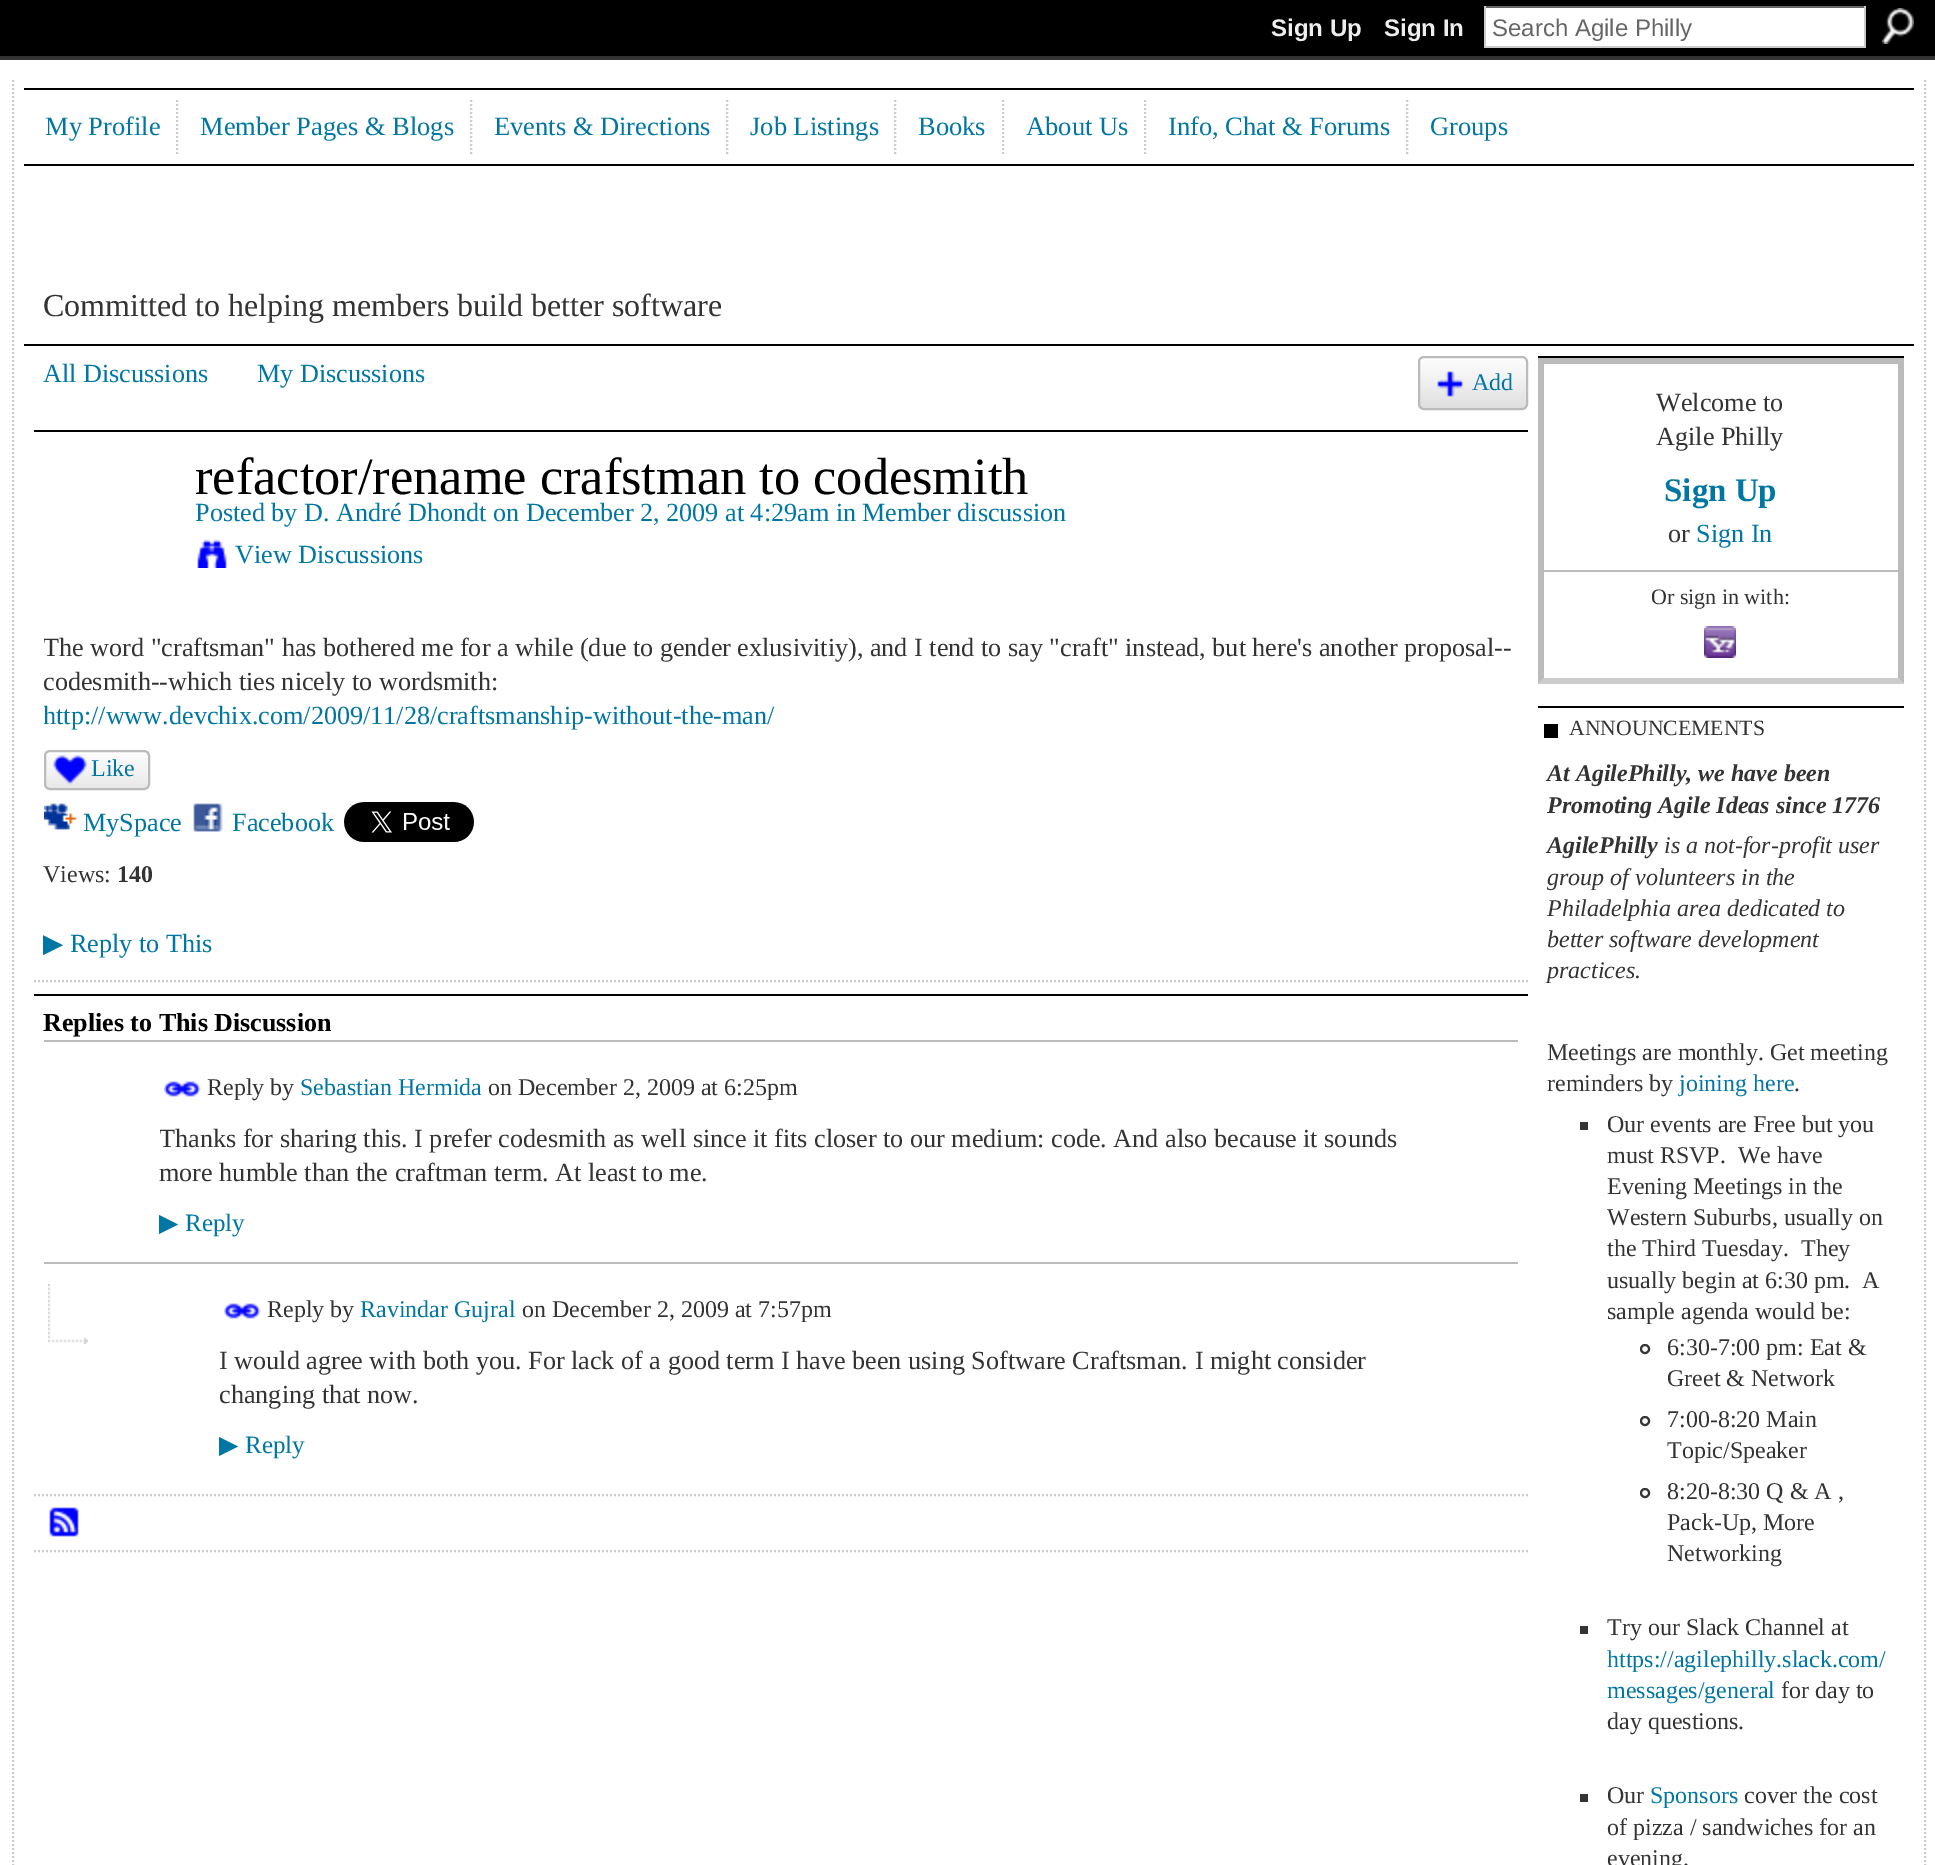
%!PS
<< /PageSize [1935 1865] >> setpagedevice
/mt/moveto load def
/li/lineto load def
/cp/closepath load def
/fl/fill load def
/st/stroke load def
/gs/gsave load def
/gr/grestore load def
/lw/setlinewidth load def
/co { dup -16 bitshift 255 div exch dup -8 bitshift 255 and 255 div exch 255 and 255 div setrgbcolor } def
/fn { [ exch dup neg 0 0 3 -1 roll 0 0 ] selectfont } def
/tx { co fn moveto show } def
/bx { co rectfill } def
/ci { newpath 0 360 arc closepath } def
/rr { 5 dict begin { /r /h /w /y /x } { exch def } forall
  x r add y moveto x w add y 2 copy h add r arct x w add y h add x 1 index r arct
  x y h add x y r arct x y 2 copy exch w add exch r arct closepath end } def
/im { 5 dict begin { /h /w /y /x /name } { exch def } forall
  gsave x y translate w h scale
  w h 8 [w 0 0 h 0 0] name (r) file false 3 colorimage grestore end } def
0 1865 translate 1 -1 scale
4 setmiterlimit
0 0 1935 1865 16#FFFFFF bx
0 0 1935 56 16#000000 bx
0 56 1935 4 16#333333 bx
1486 8 378 38 16#FFFFFF bx
1484 6 382 2 16#666666 bx
1864 6 2 42 16#CCCCCC bx
1484 46 382 2 16#CCCCCC bx
1484 6 2 42 16#CCCCCC bx
(media/1.raw) 1882 8 32 36 im
2 lw
[2 2] 0 setdash
1925 80 mt 1925 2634 li st
13 80 mt 13 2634 li st
24 88 1890 2 16#000000 bx
24 164 1890 2 16#000000 bx
16#CCCCCC co
177 100 mt 177 154 li st
471 100 mt 471 154 li st
727 100 mt 727 154 li st
895 100 mt 895 154 li st
1003 100 mt 1003 154 li st
1145 100 mt 1145 154 li st
1407 100 mt 1407 154 li st
24 344 1890 2 16#000000 bx
(media/2.raw) 1418 360 110 50 im
16#BBBBBB co
[] 0 setdash
1419 357 108 52 5 rr st
(media/3.raw) 1437 371 26 26 im
34 430 1494 2 16#000000 bx
(media/4.raw) 197 539 30 29 im
16#CCCCCC co
[2 2] 0 setdash
34 981 mt 1528 981 li st
(media/5.raw) 44 754 106 36 im
16#BBBBBB co
[] 0 setdash
45 751 104 38 5 rr st
(media/6.raw) 53 755 34 30 im
(media/7.raw) 44 803 33 27 im
(media/8.raw) 193 803 30 29 im
(media/9.raw) 344 802 130 40 im
34 994 1494 2 16#000000 bx
16#CCCCCC co
[2 2] 0 setdash
34 1495 mt 1528 1495 li st
44 1040 1474 2 16#BBBBBB bx
(media/10.raw) 164 1081 37 16 im
(media/11.raw) 48 1284 40 60 im
44 1262 1474 2 16#BBBBBB bx
(media/10.raw) 224 1303 37 16 im
16#CCCCCC co
34 1551 mt 1528 1551 li st
(media/12.raw) 49 1507 30 30 im
1538 356 366 2 16#000000 bx
1538 358 366 6 16#BBBBBB bx
1904 358 mt 1904 684 li 1898 678 li 1898 364 li cp fl
16#CCCCCC co
1904 684 mt 1538 684 li 1544 678 li 1898 678 li cp fl
16#BBBBBB co
1538 684 mt 1538 358 li 1544 364 li 1544 678 li cp fl
1544 570 354 2 16#BBBBBB bx
(media/13.raw) 1704 626 32 32 im
1538 706 366 2 16#000000 bx
1544 724 14 14 16#000000 bx
1580 1122 8 8 16#333333 bx
[] 0 setdash
1645 1349 4 ci st
1645 1421 4 ci st
1645 1493 4 ci st
1580 1626 8 8 16#333333 bx
1580 1794 8 8 16#333333 bx
(Sign Up) 1271 36 /LiberationSans-Bold 24 16#EEEEEE tx
(Sign In) 1384 36 /LiberationSans-Bold 24 16#EEEEEE tx
(Search Agile Philly) 1492 36 /LiberationSans-Regular 24 16#666666 tx
(My Profile) 45 135 /LiberationSerif-Regular 26.5 16#0076A3 tx
(Member Pages & Blogs) 200 135 /LiberationSerif-Regular 26.5 16#0076A3 tx
(Events & Directions) 494 135 /LiberationSerif-Regular 26.5 16#0076A3 tx
(Job Listings) 750 135 /LiberationSerif-Regular 26.5 16#0076A3 tx
(Books) 918 135 /LiberationSerif-Regular 26.5 16#0076A3 tx
(About Us) 1026 135 /LiberationSerif-Regular 26.5 16#0076A3 tx
(Info, Chat & Forums) 1168 135 /LiberationSerif-Regular 26.5 16#0076A3 tx
(Groups) 1430 135 /LiberationSerif-Regular 26.5 16#0076A3 tx
(Committed to helping members build better software) 43 316 /LiberationSerif-Regular 32 16#333333 tx
(All Discussions) 43 382 /LiberationSerif-Regular 26.18 16#0076A3 tx
(My Discussions) 257 382 /LiberationSerif-Regular 26.18 16#0076A3 tx
(Add) 1472 390 /LiberationSerif-Regular 24 16#0076A3 tx
(refactor/rename crafstman to codesmith) 195 494 /LiberationSerif-Regular 52.4 16#000000 tx
(Posted by D. André Dhondt on December 2, 2009 at 4:29am in) 195 521 /LiberationSerif-Regular 26.18 16#0076A3 tx
(Member discussion) 862 521 /LiberationSerif-Regular 26.18 16#0076A3 tx
(View Discussions) 235 563 /LiberationSerif-Regular 26.18 16#0076A3 tx
gs
44 630 1474 102 rectclip
(The word "craftsman" has bothered me for a while \(due to gender exlusivitiy\), and I tend to say "craft" instead, but here's another proposal--) 43 656 /LiberationSerif-Regular 26.18 16#333333 tx
gr
(codesmith--which ties nicely to wordsmith:) 43 690 /LiberationSerif-Regular 26.18 16#333333 tx
gs
44 630 1474 102 rectclip
(http://www.devchix.com/2009/11/28/craftsmanship-without-the-man/) 43 724 /LiberationSerif-Regular 26.18 16#0076A3 tx
gr
(Like) 91 776 /LiberationSerif-Regular 24 16#0076A3 tx
(MySpace) 83 831 /LiberationSerif-Regular 26.18 16#0076A3 tx
(Facebook) 232 831 /LiberationSerif-Regular 26.18 16#0076A3 tx
(Views:) 43 882 /LiberationSerif-Regular 24 16#333333 tx
(140) 117 882 /LiberationSerif-Bold 24 16#333333 tx
(▶) 43 952 /DejaVuSans-Regular 26.18 16#0076A3 tx
(Reply to This) 70 952 /LiberationSerif-Regular 26.18 16#0076A3 tx
(Replies to This Discussion) 43 1031 /LiberationSerif-Bold 26 16#000000 tx
(Reply by) 207 1095 /LiberationSerif-Regular 24 16#333333 tx
(Sebastian Hermida) 300 1095 /LiberationSerif-Regular 24 16#0076A3 tx
(on December 2, 2009 at 6:25pm) 488 1095 /LiberationSerif-Regular 24 16#333333 tx
gs
160 1120 1288 68 rectclip
(Thanks for sharing this. I prefer codesmith as well since it fits closer to our medium: code. And also because it sounds) 159 1147 /LiberationSerif-Regular 26.18 16#333333 tx
gr
(more humble than the craftman term. At least to me.) 159 1181 /LiberationSerif-Regular 26.18 16#333333 tx
(▶) 159 1231 /DejaVuSans-Regular 25 16#0076A3 tx
(Reply) 185 1231 /LiberationSerif-Regular 25 16#0076A3 tx
(Reply by) 267 1317 /LiberationSerif-Regular 24 16#333333 tx
(Ravindar Gujral) 360 1317 /LiberationSerif-Regular 24 16#0076A3 tx
(on December 2, 2009 at 7:57pm) 522 1317 /LiberationSerif-Regular 24 16#333333 tx
(I would agree with both you. For lack of a good term I have been using Software Craftsman. I might consider) 219 1369 /LiberationSerif-Regular 26.18 16#333333 tx
(changing that now.) 219 1403 /LiberationSerif-Regular 26.18 16#333333 tx
(▶) 219 1453 /DejaVuSans-Regular 25 16#0076A3 tx
(Reply) 245 1453 /LiberationSerif-Regular 25 16#0076A3 tx
(Welcome to) 1656 411 /LiberationSerif-Regular 26.18 16#333333 tx
(Agile Philly) 1656 445 /LiberationSerif-Regular 26.18 16#333333 tx
(Sign Up) 1664 501 /LiberationSerif-Bold 33 16#0076A3 tx
(or) 1668 542 /LiberationSerif-Regular 26.18 16#333333 tx
(Sign In) 1696 542 /LiberationSerif-Regular 26.18 16#0076A3 tx
(Or sign in with:) 1651 604 /LiberationSerif-Regular 22 16#333333 tx
(ANNOUNCEMENTS) 1569 735 /LiberationSerif-Regular 21.75 16#333333 tx
(At AgilePhilly, we have been) 1547 781 /LiberationSerif-BoldItalic 24 16#333333 tx
(Promoting Agile Ideas since 1776) 1547 813 /LiberationSerif-BoldItalic 24 16#333333 tx
(AgilePhilly) 1547 853 /LiberationSerif-BoldItalic 24 16#333333 tx
(is a not-for-profit user) 1664 853 /LiberationSerif-Italic 24 16#333333 tx
(group of volunteers in the) 1547 885 /LiberationSerif-Italic 24 16#333333 tx
(Philadelphia area dedicated to) 1547 916 /LiberationSerif-Italic 24 16#333333 tx
(better software development) 1547 947 /LiberationSerif-Italic 24 16#333333 tx
(practices.) 1547 978 /LiberationSerif-Italic 24 16#333333 tx
(Meetings are monthly. Get meeting) 1547 1060 /LiberationSerif-Regular 24 16#333333 tx
(reminders by) 1547 1091 /LiberationSerif-Regular 24 16#333333 tx
(joining here) 1679 1091 /LiberationSerif-Regular 24 16#0076A3 tx
(.) 1794 1091 /LiberationSerif-Regular 24 16#333333 tx
(Our events are Free but you) 1607 1132 /LiberationSerif-Regular 24 16#333333 tx
(must RSVP.  We have) 1607 1163 /LiberationSerif-Regular 24 16#333333 tx
(Evening Meetings in the) 1607 1194 /LiberationSerif-Regular 24 16#333333 tx
(Western Suburbs, usually on) 1607 1225 /LiberationSerif-Regular 24 16#333333 tx
(the Third Tuesday.  They) 1607 1256 /LiberationSerif-Regular 24 16#333333 tx
(usually begin at 6:30 pm.  A) 1607 1288 /LiberationSerif-Regular 24 16#333333 tx
(sample agenda would be:) 1607 1319 /LiberationSerif-Regular 24 16#333333 tx
(6:30-7:00 pm: Eat &) 1667 1355 /LiberationSerif-Regular 24 16#333333 tx
(Greet & Network) 1667 1386 /LiberationSerif-Regular 24 16#333333 tx
(7:00-8:20 Main) 1667 1427 /LiberationSerif-Regular 24 16#333333 tx
(Topic/Speaker) 1667 1458 /LiberationSerif-Regular 24 16#333333 tx
(8:20-8:30 Q & A ,) 1667 1499 /LiberationSerif-Regular 24 16#333333 tx
(Pack-Up, More) 1667 1530 /LiberationSerif-Regular 24 16#333333 tx
(Networking) 1667 1561 /LiberationSerif-Regular 24 16#333333 tx
(Try our Slack Channel at) 1607 1635 /LiberationSerif-Regular 24 16#333333 tx
(https://agilephilly.slack.com/) 1607 1667 /LiberationSerif-Regular 24 16#0076A3 tx
(messages/general) 1607 1698 /LiberationSerif-Regular 24 16#0076A3 tx
(for day to) 1781 1698 /LiberationSerif-Regular 24 16#333333 tx
(day questions.) 1607 1729 /LiberationSerif-Regular 24 16#333333 tx
(Our) 1607 1803 /LiberationSerif-Regular 24 16#333333 tx
(Sponsors) 1650 1803 /LiberationSerif-Regular 24 16#0076A3 tx
(cover the cost) 1744 1803 /LiberationSerif-Regular 24 16#333333 tx
(of pizza / sandwiches for an) 1607 1835 /LiberationSerif-Regular 24 16#333333 tx
(evening.) 1607 1866 /LiberationSerif-Regular 24 16#333333 tx
showpage
